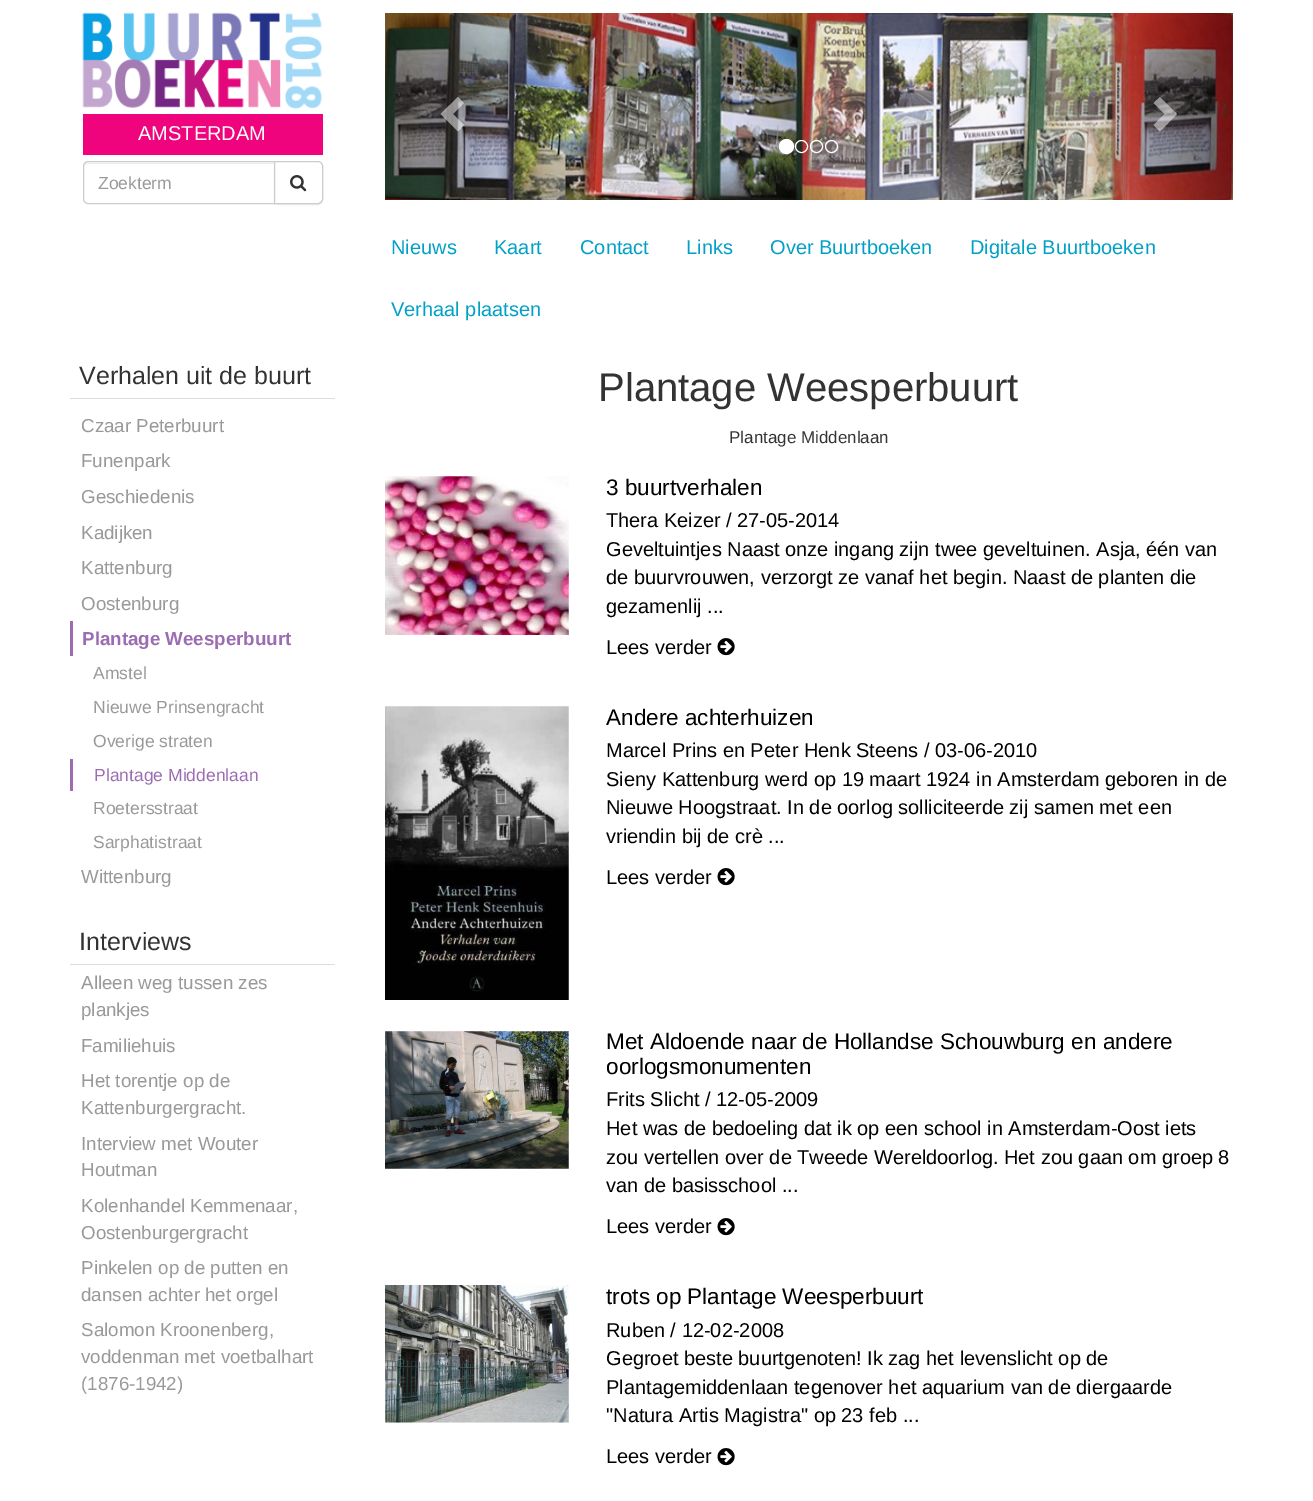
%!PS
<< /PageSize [1313 1501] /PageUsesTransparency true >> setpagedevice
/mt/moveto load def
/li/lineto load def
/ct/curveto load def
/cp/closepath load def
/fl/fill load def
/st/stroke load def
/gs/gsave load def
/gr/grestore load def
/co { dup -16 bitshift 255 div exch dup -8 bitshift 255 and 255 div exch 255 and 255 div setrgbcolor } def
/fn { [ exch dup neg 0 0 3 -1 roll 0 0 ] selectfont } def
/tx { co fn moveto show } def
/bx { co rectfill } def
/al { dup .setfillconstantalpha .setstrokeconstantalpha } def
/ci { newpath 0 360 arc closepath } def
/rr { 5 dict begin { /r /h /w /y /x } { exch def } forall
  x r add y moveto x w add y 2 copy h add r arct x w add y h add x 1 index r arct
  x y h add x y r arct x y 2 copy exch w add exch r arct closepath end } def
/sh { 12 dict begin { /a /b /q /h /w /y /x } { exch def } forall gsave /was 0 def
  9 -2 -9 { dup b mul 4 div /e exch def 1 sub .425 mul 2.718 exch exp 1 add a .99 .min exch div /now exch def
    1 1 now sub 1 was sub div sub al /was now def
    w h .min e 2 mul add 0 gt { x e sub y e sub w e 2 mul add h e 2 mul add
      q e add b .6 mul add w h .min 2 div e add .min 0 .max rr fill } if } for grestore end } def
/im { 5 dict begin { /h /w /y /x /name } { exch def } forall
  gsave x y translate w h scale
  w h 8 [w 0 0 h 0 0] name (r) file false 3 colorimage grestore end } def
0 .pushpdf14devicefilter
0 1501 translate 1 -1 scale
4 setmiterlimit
0 0 1313 1501 16#FFFFFF bx
(media/1.raw) 82 12 240 97 im
83 114 240 41 16#EF047D bx
16#ECECEC co
88 164 mt 274 164 li 274 163 li 88 163 li 85 163 84 165 84 168 ct 84 165 85 164 88 164 ct cp fl
16#CCCCCC co
88 161.5 mt 274.5 161.5 li 274.5 203.5 li 88 203.5 li 85.5 203.5 83.5 201.5 83.5 199 ct 83.5 166 li 83.5 163.5 85.5 161.5 88 161.5 ct cp st
16#000000 co
274 163 49 42 5 .5 .07 sh
16#FFFFFF co
274.5 161.5 mt 318 161.5 li 320.5 161.5 322.5 163.5 322.5 166 ct 322.5 199 li 322.5 201.5 320.5 203.5 318 203.5 ct 274.5 203.5 li cp gs fl gr
16#CCCCCC co
st
(media/2.raw) 290 175 17 17 im
(media/3.raw) 385 13 848 187 im
0.5 al
16#FFFFFF co
464 103 mt 453 114 li 464 125 li 458 131.5 li 440.5 114 li 458 97 li cp fl
1177 114 mt 1160 131.5 li 1153.5 125 li 1164.5 114 li 1153.5 103 li 1160 97 li cp fl
1 al
786.5 146.5 7 ci gs fl gr
st
801.5 146.5 6 ci st
816.5 146.5 6 ci st
831.5 146.5 6 ci st
70 398 265 1 16#DDDDDD bx
70 621 3 35 16#9B6CB2 bx
70 759 3 32 16#9B6CB2 bx
70 964 265 1 16#DDDDDD bx
(media/4.raw) 385 476 184 159 im
(media/5.raw) 717 638 18 18 im
(media/6.raw) 385 706 184 294 im
(media/5.raw) 717 868 18 18 im
(media/7.raw) 385 1031 184 138 im
(media/5.raw) 717 1218 18 18 im
(media/8.raw) 385 1285 184 138 im
(media/5.raw) 717 1448 18 18 im
(AMSTERDAM) 138 140 /LiberationSans-Regular 20 16#FFFFFF tx
(Zoekterm) 98 189 /LiberationSans-Regular 17.5 16#999999 tx
(Nieuws) 391 254 /LiberationSans-Regular 20 16#01A0C7 tx
(Kaart) 494 254 /LiberationSans-Regular 20 16#01A0C7 tx
(Contact) 580 254 /LiberationSans-Regular 20 16#01A0C7 tx
(Links) 686 254 /LiberationSans-Regular 20 16#01A0C7 tx
(Over Buurtboeken) 770 254 /LiberationSans-Regular 20 16#01A0C7 tx
(Digitale Buurtboeken) 970 254 /LiberationSans-Regular 20 16#01A0C7 tx
(Verhaal plaatsen) 391 316 /LiberationSans-Regular 20 16#01A0C7 tx
(Verhalen uit de buurt) 79 384 /LiberationSans-Regular 25 16#333333 tx
(Czaar Peterbuurt) 81 432 /LiberationSans-Regular 18.75 16#999999 tx
(Funenpark) 81 467 /LiberationSans-Regular 18.75 16#999999 tx
(Geschiedenis) 81 503 /LiberationSans-Regular 18.75 16#999999 tx
(Kadijken) 81 539 /LiberationSans-Regular 18.75 16#999999 tx
(Kattenburg) 81 574 /LiberationSans-Regular 18.75 16#999999 tx
(Oostenburg) 81 610 /LiberationSans-Regular 18.75 16#999999 tx
(Plantage Weesperbuurt) 82 645 /LiberationSans-Bold 18.75 16#9B6CB2 tx
(Amstel) 93 679 /LiberationSans-Regular 17.5 16#999999 tx
(Nieuwe Prinsengracht) 93 713 /LiberationSans-Regular 17.5 16#999999 tx
(Overige straten) 93 747 /LiberationSans-Regular 17.5 16#999999 tx
(Plantage Middenlaan) 94 781 /LiberationSans-Regular 17.5 16#9B6CB2 tx
(Roetersstraat) 93 814 /LiberationSans-Regular 17.5 16#999999 tx
(Sarphatistraat) 93 848 /LiberationSans-Regular 17.5 16#999999 tx
(Wittenburg) 81 883 /LiberationSans-Regular 18.75 16#999999 tx
(Interviews) 79 950 /LiberationSans-Regular 25 16#333333 tx
(Alleen weg tussen zes) 81 989 /LiberationSans-Regular 18.75 16#999999 tx
(plankjes) 81 1016 /LiberationSans-Regular 18.75 16#999999 tx
(Familiehuis) 81 1052 /LiberationSans-Regular 18.75 16#999999 tx
(Het torentje op de) 81 1087 /LiberationSans-Regular 18.75 16#999999 tx
(Kattenburgergracht.) 81 1114 /LiberationSans-Regular 18.75 16#999999 tx
(Interview met Wouter) 81 1150 /LiberationSans-Regular 18.75 16#999999 tx
(Houtman) 81 1176 /LiberationSans-Regular 18.75 16#999999 tx
(Kolenhandel Kemmenaar,) 81 1212 /LiberationSans-Regular 18.75 16#999999 tx
(Oostenburgergracht) 81 1239 /LiberationSans-Regular 18.75 16#999999 tx
(Pinkelen op de putten en) 81 1274 /LiberationSans-Regular 18.75 16#999999 tx
(dansen achter het orgel) 81 1301 /LiberationSans-Regular 18.75 16#999999 tx
(Salomon Kroonenberg,) 81 1336 /LiberationSans-Regular 18.75 16#999999 tx
(voddenman met voetbalhart) 81 1363 /LiberationSans-Regular 18.75 16#999999 tx
(\(1876-1942\)) 81 1390 /LiberationSans-Regular 18.75 16#999999 tx
(Plantage Weesperbuurt) 598 401 /LiberationSans-Regular 40 16#333333 tx
(Plantage Middenlaan) 729 443 /LiberationSans-Regular 17 16#333333 tx
(3 buurtverhalen) 606 495 /LiberationSans-Regular 22.5 16#000000 tx
(Thera Keizer / 27-05-2014) 606 527 /LiberationSans-Regular 20 16#000000 tx
(Geveltuintjes Naast onze ingang zijn twee geveltuinen. Asja, één van) 606 556 /LiberationSans-Regular 20 16#000000 tx
(de buurvrouwen, verzorgt ze vanaf het begin. Naast de planten die) 606 584 /LiberationSans-Regular 20 16#000000 tx
(gezamenlij ...) 606 613 /LiberationSans-Regular 20 16#000000 tx
(Lees verder) 606 654 /LiberationSans-Regular 20 16#000000 tx
(Andere achterhuizen) 606 725 /LiberationSans-Regular 22.5 16#000000 tx
(Marcel Prins en Peter Henk Steens / 03-06-2010) 606 757 /LiberationSans-Regular 20 16#000000 tx
(Sieny Kattenburg werd op 19 maart 1924 in Amsterdam geboren in de) 606 786 /LiberationSans-Regular 20 16#000000 tx
(Nieuwe Hoogstraat. In de oorlog solliciteerde zij samen met een) 606 814 /LiberationSans-Regular 20 16#000000 tx
(vriendin bij de crè ...) 606 843 /LiberationSans-Regular 20 16#000000 tx
(Lees verder) 606 884 /LiberationSans-Regular 20 16#000000 tx
(Met Aldoende naar de Hollandse Schouwburg en andere) 606 1049 /LiberationSans-Regular 22.5 16#000000 tx
(oorlogsmonumenten) 606 1074 /LiberationSans-Regular 22.5 16#000000 tx
(Frits Slicht / 12-05-2009) 606 1106 /LiberationSans-Regular 20 16#000000 tx
(Het was de bedoeling dat ik op een school in Amsterdam-Oost iets) 606 1135 /LiberationSans-Regular 20 16#000000 tx
(zou vertellen over de Tweede Wereldoorlog. Het zou gaan om groep 8) 606 1164 /LiberationSans-Regular 20 16#000000 tx
(van de basisschool ...) 606 1192 /LiberationSans-Regular 20 16#000000 tx
(Lees verder) 606 1233 /LiberationSans-Regular 20 16#000000 tx
(trots op Plantage Weesperbuurt) 606 1304 /LiberationSans-Regular 22.5 16#000000 tx
(Ruben / 12-02-2008) 606 1337 /LiberationSans-Regular 20 16#000000 tx
(Gegroet beste buurtgenoten! Ik zag het levenslicht op de) 606 1365 /LiberationSans-Regular 20 16#000000 tx
(Plantagemiddenlaan tegenover het aquarium van de diergaarde) 606 1394 /LiberationSans-Regular 20 16#000000 tx
("Natura Artis Magistra" op 23 feb ...) 606 1422 /LiberationSans-Regular 20 16#000000 tx
(Lees verder) 606 1463 /LiberationSans-Regular 20 16#000000 tx
.poppdf14devicefilter showpage
